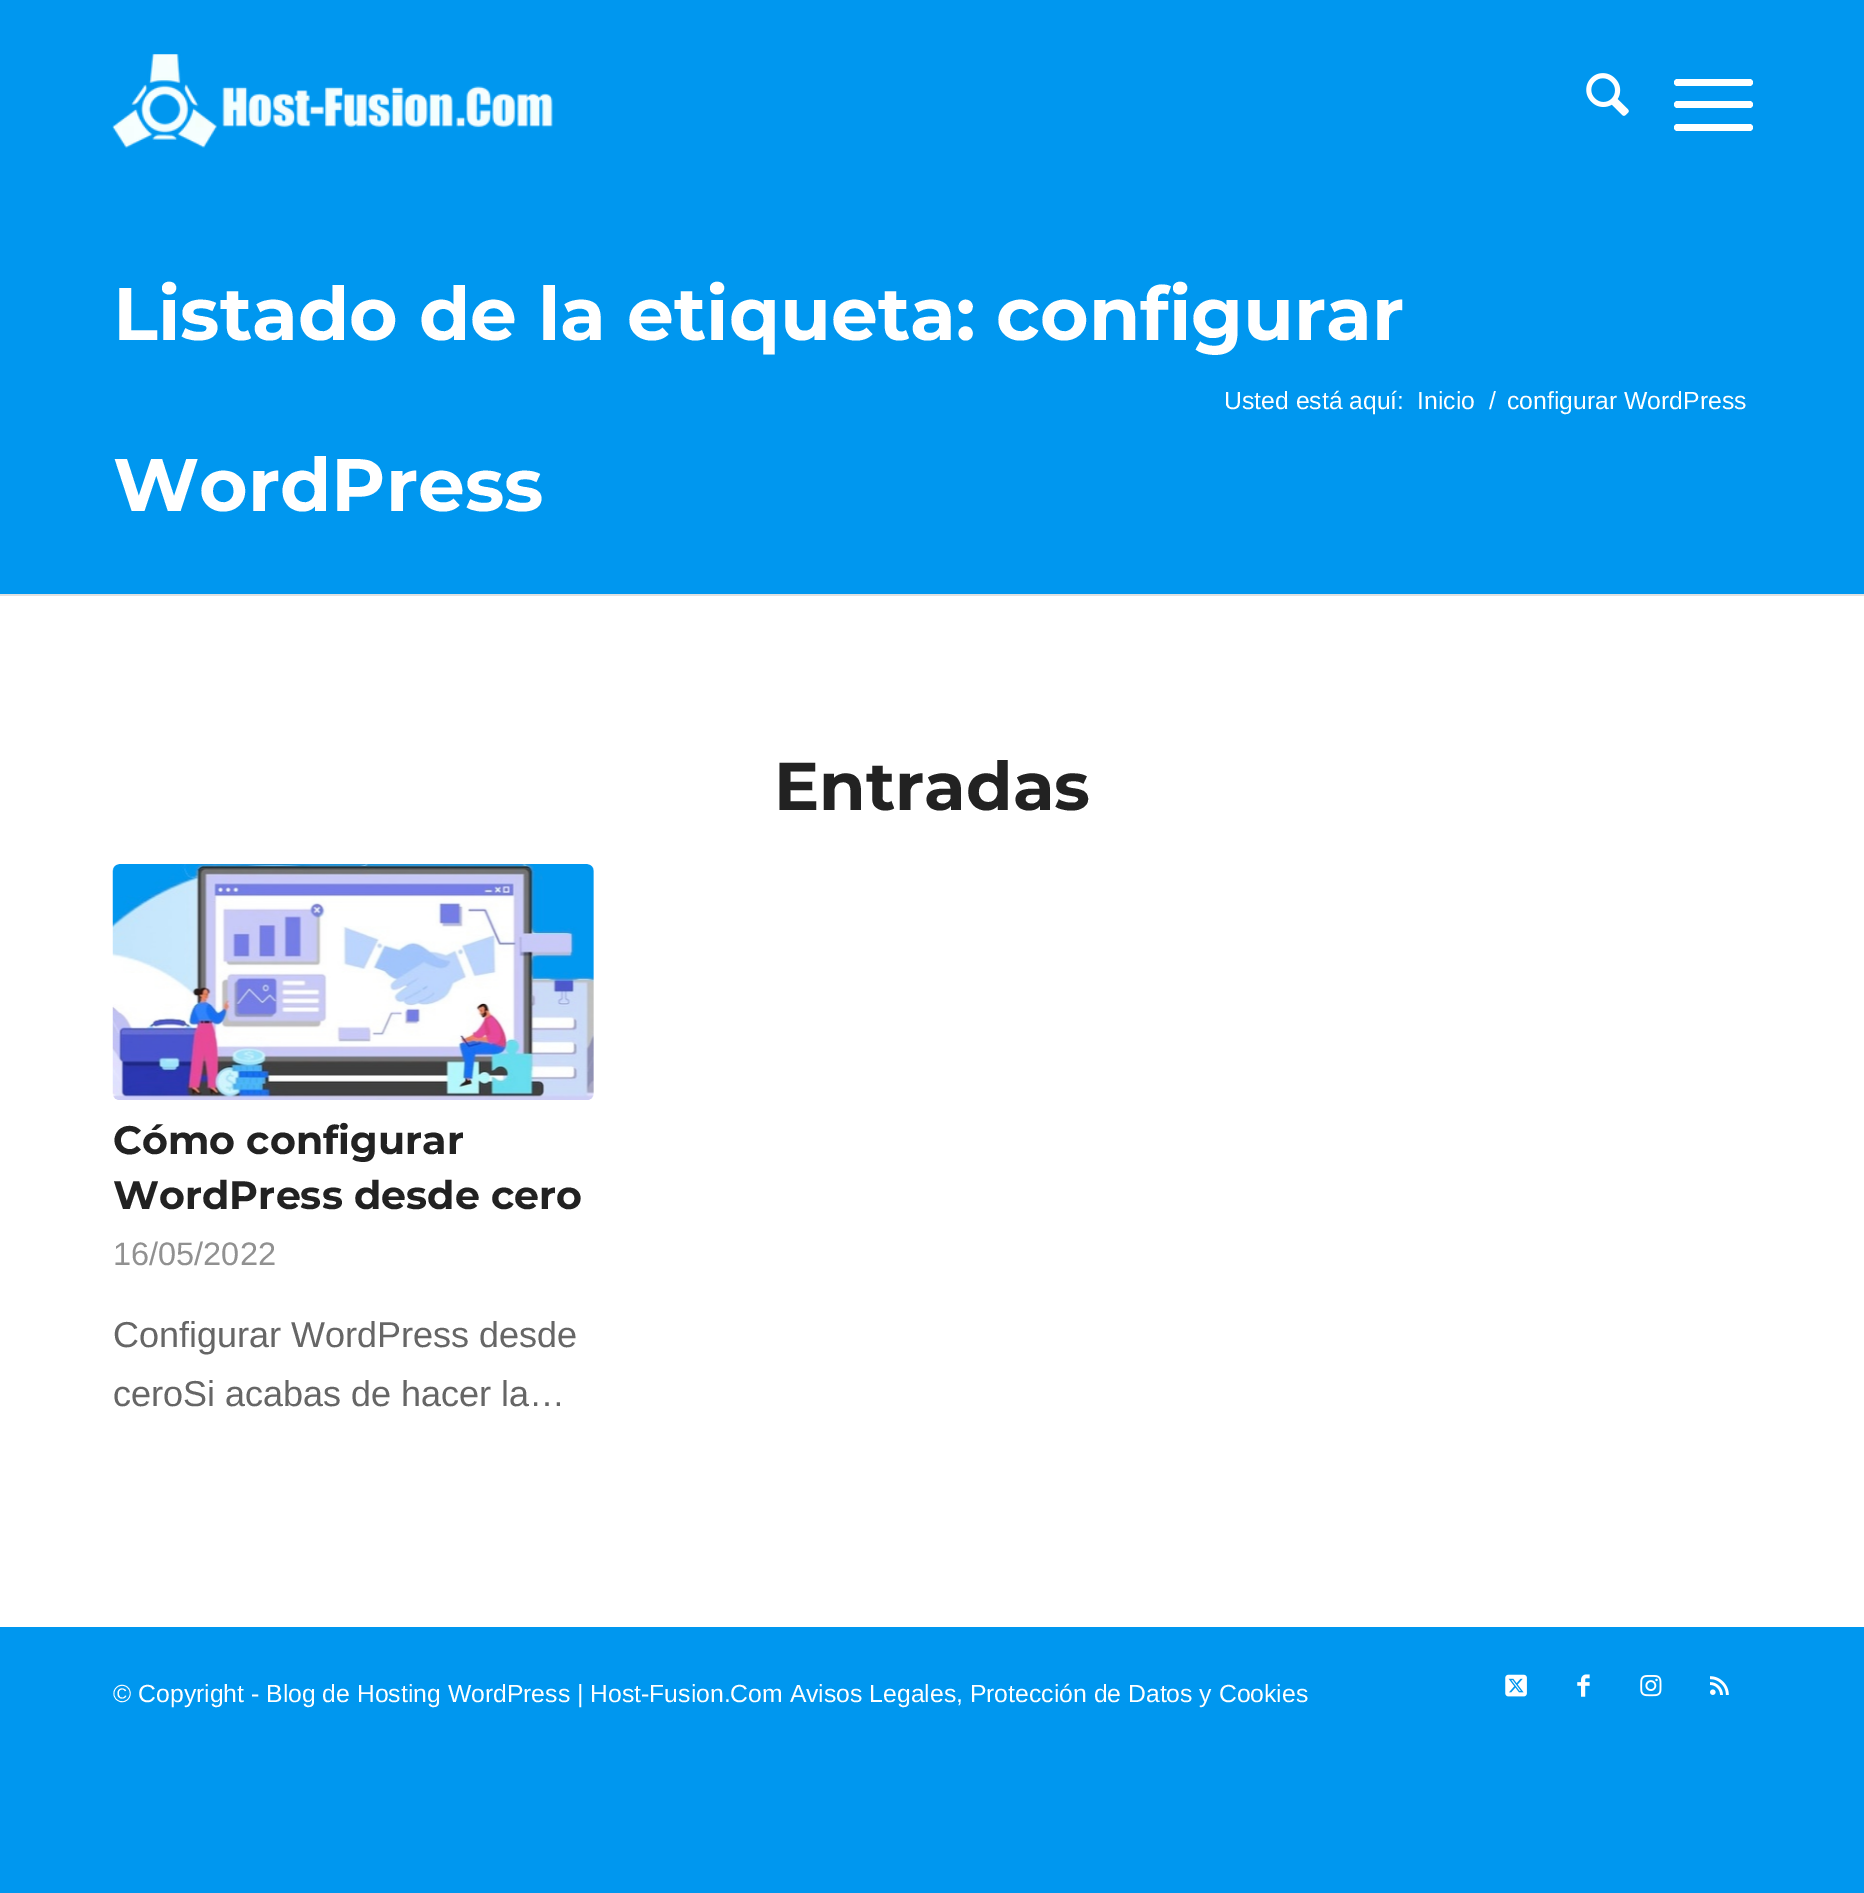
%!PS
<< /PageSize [1864 1893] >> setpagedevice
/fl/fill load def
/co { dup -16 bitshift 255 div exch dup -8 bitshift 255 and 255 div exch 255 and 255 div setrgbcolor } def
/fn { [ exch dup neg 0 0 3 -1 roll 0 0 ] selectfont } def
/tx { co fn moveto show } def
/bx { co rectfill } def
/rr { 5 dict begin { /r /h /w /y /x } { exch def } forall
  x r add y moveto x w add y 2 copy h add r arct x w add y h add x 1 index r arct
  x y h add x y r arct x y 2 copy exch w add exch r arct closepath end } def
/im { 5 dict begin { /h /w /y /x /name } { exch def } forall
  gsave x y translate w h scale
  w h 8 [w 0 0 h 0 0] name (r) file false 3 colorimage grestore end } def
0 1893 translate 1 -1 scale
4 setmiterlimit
0 0 1864 1893 16#0097EF bx
(media/1.raw) 112 54 441 94 im
(media/2.raw) 1586 73 43 43 im
16#FFFFFF co
1674 101 79 7 3.5 rr fl
1674 79 79 7 3.5 rr fl
1674 124 79 7 3.5 rr fl
0 596 1864 1031 16#FFFFFF bx
0 594 1864 2 16#E1E1E1 bx
16#FCFCFC co
113 864 481 236 7 rr fl
(media/3.raw) 112 864 482 236 im
(media/4.raw) 1505 1674 22 23 im
(media/5.raw) 1577 1674 13 23 im
(media/6.raw) 1640 1675 22 22 im
(media/7.raw) 1710 1676 19 19 im
(Listado de la etiqueta: configurar) 113 340 /Montserrat-Bold 74.25 16#FFFFFF tx
(WordPress) 113 511 /Montserrat-Bold 74.25 16#FFFFFF tx
(Usted está aquí:) 1224 409 /LiberationSans-Regular 24.75 16#FFFFFF tx
(Inicio) 1417 409 /LiberationSans-Regular 24.75 16#FFFFFF tx
(/) 1489 409 /LiberationSans-Regular 24.75 16#FFFFFF tx
(configurar WordPress) 1507 409 /LiberationSans-Regular 24.75 16#FFFFFF tx
(Entradas) 774 810 /Montserrat-Bold 67.5 16#222222 tx
(Cómo configurar) 113 1154 /Montserrat-Bold 39.6 16#222222 tx
(WordPress desde cero) 113 1209 /Montserrat-Bold 39.6 16#222222 tx
(16/05/2022) 113 1265 /LiberationSans-Regular 32.5 16#919191 tx
(Configurar WordPress desde) 113 1347 /LiberationSans-Regular 36 16#666666 tx
(ceroSi acabas de hacer la…) 113 1406 /LiberationSans-Regular 36 16#666666 tx
(© Copyright - Blog de Hosting WordPress | Host-Fusion.Com Avisos Legales, Protección de Datos y Cookies) 113 1702 /LiberationSans-Regular 24.75 16#FFFFFF tx
showpage
